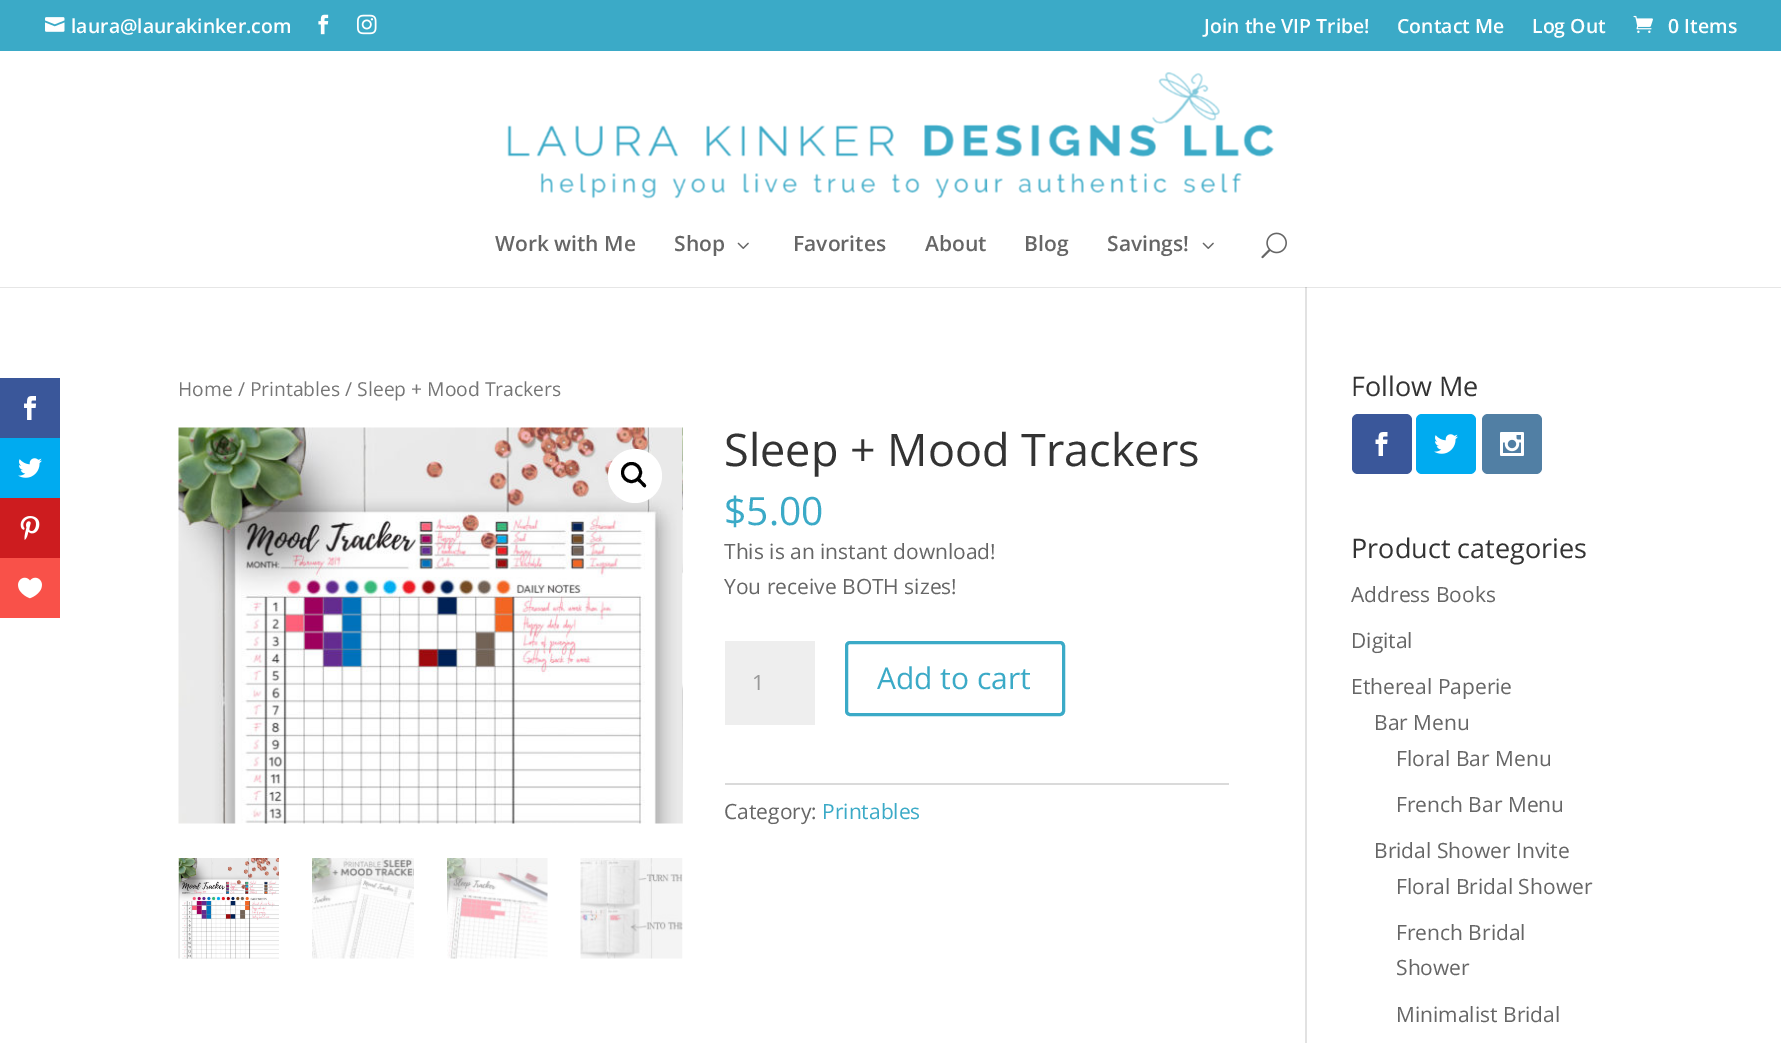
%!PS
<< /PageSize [1781 1043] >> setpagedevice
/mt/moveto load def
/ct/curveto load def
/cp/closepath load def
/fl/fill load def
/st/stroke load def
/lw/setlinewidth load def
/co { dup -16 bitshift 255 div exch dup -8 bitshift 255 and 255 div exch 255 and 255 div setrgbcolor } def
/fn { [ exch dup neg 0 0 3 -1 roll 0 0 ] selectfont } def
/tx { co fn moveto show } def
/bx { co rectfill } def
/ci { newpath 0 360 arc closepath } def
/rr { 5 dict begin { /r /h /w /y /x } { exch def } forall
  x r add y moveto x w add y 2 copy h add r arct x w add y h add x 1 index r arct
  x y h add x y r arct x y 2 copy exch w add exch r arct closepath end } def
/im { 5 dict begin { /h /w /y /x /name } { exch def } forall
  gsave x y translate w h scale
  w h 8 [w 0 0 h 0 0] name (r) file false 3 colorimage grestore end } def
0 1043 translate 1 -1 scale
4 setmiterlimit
0 0 1781 1043 16#FFFFFF bx
0 287 1781 1 16#E6E6E6 bx
0 378 60 60 16#3A579A bx
(media/1.raw) 24 396 12 24 im
0 438 60 60 16#00ABF0 bx
(media/2.raw) 18 458 24 20 im
0 498 60 60 16#CD1C1F bx
(media/3.raw) 20 516 20 24 im
0 558 60 60 16#F95149 bx
(media/4.raw) 18 577 24 22 im
0 0 1781 51 16#3BAAC7 bx
(media/5.raw) 45 17 20 15 im
(media/6.raw) 318 14 11 21 im
(media/7.raw) 357 14 20 21 im
(media/8.raw) 1633 15 20 18 im
1305 285 2 758 16#E2E2E2 bx
1305 285 2 2 16#FFFFFF bx
(media/9.raw) 507 72 767 127 im
(media/10.raw) 737 242 12 7 im
(media/10.raw) 1202 242 12 7 im
(media/11.raw) 1261 232 26 27 im
1305 287 2 1 16#CBCBCB bx
(media/12.raw) 178 427 505 397 im
(media/13.raw) 682 427 1 397 im
16#FFFFFF co
635 476 27 ci fl
16#000000 co
3 lw
631.5 472.5 9 ci st
637 478.5 mt 639 476.5 641.5 480.5 642.5 481.5 ct 643.5 482.5 647.5 485 645.5 487 ct 644 488.5 641.5 484.5 640.5 483.5 ct 639.5 482.5 635.5 480 637 478.5 ct cp fl
(media/14.raw) 178 858 101 101 im
(media/15.raw) 312 858 102 101 im
(media/16.raw) 447 858 101 101 im
(media/17.raw) 580 858 103 101 im
725 641 90 84 16#EEEEEE bx
16#3BAAC7 co
846.5 642.5 217 72 3.5 rr st
725 783 504 2 16#DADADA bx
16#3A579A co
1352 414 60 60 6 rr fl
(media/18.raw) 1375 432 13 24 im
16#00ABF0 co
1416 414 60 60 6 rr fl
(media/2.raw) 1434 434 24 20 im
16#517FA4 co
1482 414 60 60 6 rr fl
(media/19.raw) 1500 432 24 24 im
(laura@laurakinker.com) 71 33 /OpenSans-SemiBold 19.5 16#FFFFFF tx
(Join the VIP Tribe!) 1204 33 /OpenSans-SemiBold 19.5 16#FFFFFF tx
(Contact Me) 1397 33 /OpenSans-SemiBold 19.5 16#FFFFFF tx
(Log Out) 1532 33 /OpenSans-SemiBold 19.5 16#FFFFFF tx
(0 Items) 1668 33 /OpenSans-SemiBold 19.5 16#FFFFFF tx
(Work with Me) 495 251 /OpenSans-SemiBold 21 16#666666 tx
(Shop) 674 251 /OpenSans-SemiBold 21 16#666666 tx
(Favorites) 793 251 /OpenSans-SemiBold 21 16#666666 tx
(About) 925 251 /OpenSans-SemiBold 21 16#666666 tx
(Blog) 1024 251 /OpenSans-SemiBold 21 16#666666 tx
(Savings!) 1107 251 /OpenSans-SemiBold 21 16#666666 tx
(Home / Printables / Sleep + Mood Trackers) 178 396 /OpenSans-Regular 19.3 16#767676 tx
(Sleep + Mood Trackers) 724 466 /OpenSans-Regular 45 16#333333 tx
($5.00) 724 525 /OpenSans-Regular 39 16#3BAAC7 tx
(This is an instant download!) 724 559 /OpenSans-Regular 21 16#666666 tx
(You receive BOTH sizes!) 724 594 /OpenSans-Regular 21 16#666666 tx
(1) 752 690 /OpenSans-Regular 21 16#999999 tx
(Add to cart) 877 689 /OpenSans-Regular 30 16#3BAAC7 tx
(Category:) 724 819 /OpenSans-Regular 21 16#666666 tx
(Printables) 822 819 /OpenSans-Regular 21 16#3BAAC7 tx
(Follow Me) 1351 396 /OpenSans-Regular 27 16#333333 tx
(Product categories) 1351 558 /OpenSans-Regular 27 16#333333 tx
(Address Books) 1351 602 /OpenSans-Regular 21 16#666666 tx
(Digital) 1351 648 /OpenSans-Regular 21 16#666666 tx
(Ethereal Paperie) 1351 694 /OpenSans-Regular 21 16#666666 tx
(Bar Menu) 1374 730 /OpenSans-Regular 21 16#666666 tx
(Floral Bar Menu) 1396 766 /OpenSans-Regular 21 16#666666 tx
(French Bar Menu) 1396 812 /OpenSans-Regular 21 16#666666 tx
(Bridal Shower Invite) 1374 858 /OpenSans-Regular 21 16#666666 tx
(Floral Bridal Shower) 1396 894 /OpenSans-Regular 21 16#666666 tx
(French Bridal) 1396 940 /OpenSans-Regular 21 16#666666 tx
(Shower) 1396 975 /OpenSans-Regular 21 16#666666 tx
(Minimalist Bridal) 1396 1022 /OpenSans-Regular 21 16#666666 tx
showpage
